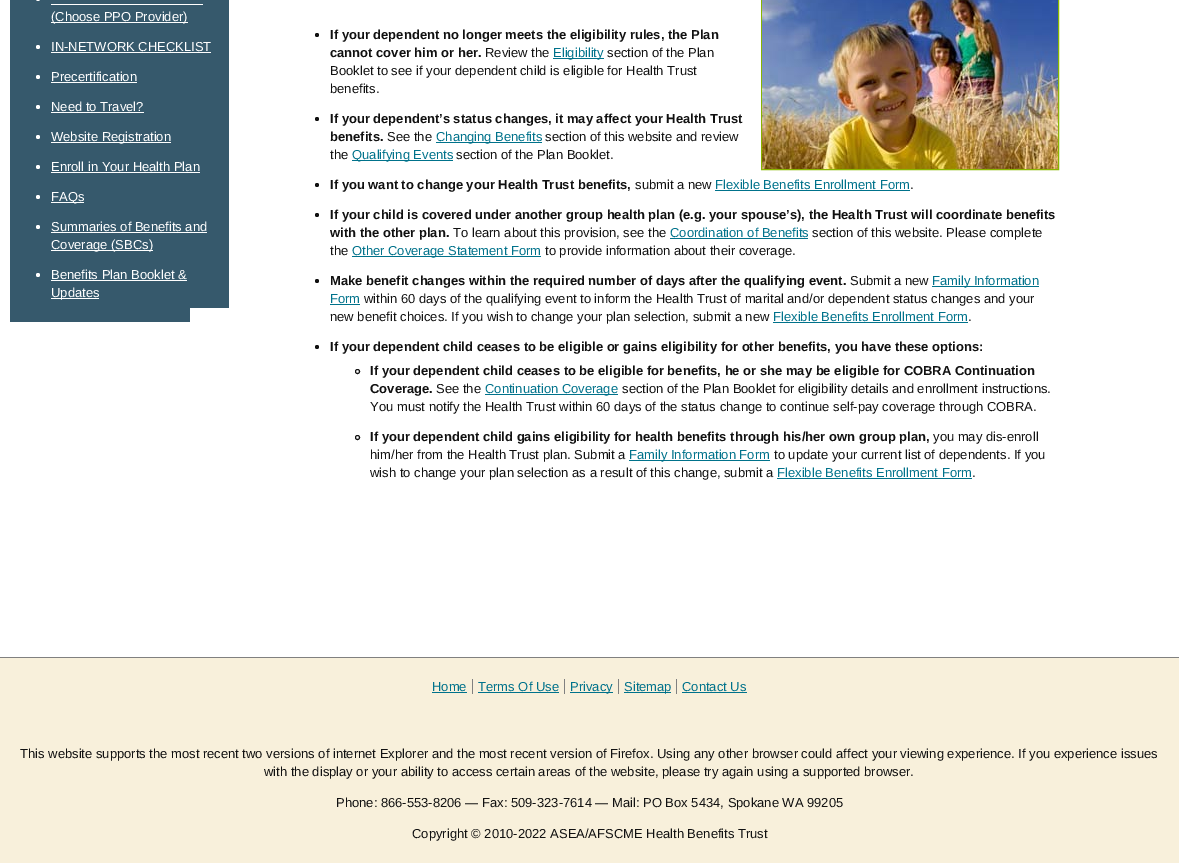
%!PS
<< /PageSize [1179 863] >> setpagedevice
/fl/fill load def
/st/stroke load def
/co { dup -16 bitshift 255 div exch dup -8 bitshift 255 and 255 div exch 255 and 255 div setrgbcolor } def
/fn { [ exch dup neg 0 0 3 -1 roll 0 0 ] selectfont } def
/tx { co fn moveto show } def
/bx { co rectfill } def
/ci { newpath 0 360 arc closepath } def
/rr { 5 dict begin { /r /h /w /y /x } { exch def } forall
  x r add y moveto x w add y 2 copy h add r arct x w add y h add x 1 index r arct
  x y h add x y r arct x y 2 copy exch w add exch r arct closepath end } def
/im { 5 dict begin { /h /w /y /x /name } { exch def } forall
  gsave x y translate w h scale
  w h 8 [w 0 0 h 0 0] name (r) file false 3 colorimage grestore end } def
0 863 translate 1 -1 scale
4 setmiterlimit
0 0 1179 863 16#FFFFFF bx
10 0 180 322 16#36596C bx
190 0 39 308 16#36596C bx
16#FFFFFF co
36 -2 4 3 2 rr fl
51 4 152 1 16#FFFFFF bx
51 22 137 1 16#FFFFFF bx
38 47 2 ci fl
51 52 160 1 16#FFFFFF bx
38 77 2 ci fl
51 82 86 1 16#FFFFFF bx
38 107 2 ci fl
51 112 93 1 16#FFFFFF bx
38 137 2 ci fl
51 142 120 1 16#FFFFFF bx
38 167 2 ci fl
51 172 149 1 16#FFFFFF bx
38 197 2 ci fl
51 202 33 1 16#FFFFFF bx
38 227 2 ci fl
51 232 156 1 16#FFFFFF bx
51 250 102 1 16#FFFFFF bx
38 275 2 ci fl
51 280 136 1 16#FFFFFF bx
51 298 48 1 16#FFFFFF bx
16#89B600 co
761.5 -.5 297 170 rectstroke
(media/1.raw) 762 0 296 169 im
16#111111 co
317 35 2 ci fl
553 58 51 1 16#00728B bx
16#111111 co
317 119 2 ci fl
436 142 106 1 16#00728B bx
352 160 101 1 16#00728B bx
16#111111 co
317 185 2 ci fl
715 190 195 1 16#00728B bx
16#111111 co
317 215 2 ci fl
670 238 138 1 16#00728B bx
352 256 189 1 16#00728B bx
16#111111 co
317 281 2 ci fl
932 286 107 1 16#00728B bx
330 304 30 1 16#00728B bx
773 322 195 1 16#00728B bx
16#111111 co
317 347 2 ci fl
357.5 371.5 2 ci st
485 394 133 1 16#00728B bx
16#111111 co
357.5 437.5 2 ci st
629 460 141 1 16#00728B bx
777 478 195 1 16#00728B bx
0 658 1179 205 16#F8F0DB bx
0 657 1179 1 16#808080 bx
472 679 1 15 16#808080 bx
432 692 35 1 16#00728B bx
564 679 1 15 16#808080 bx
478 692 81 1 16#00728B bx
618 679 1 15 16#808080 bx
570 692 43 1 16#00728B bx
676 679 1 15 16#808080 bx
624 692 47 1 16#00728B bx
682 692 65 1 16#00728B bx
(\(Choose PPO Provider\)) 51 21 /LiberationSans-Regular 13 16#FFFFFF tx
(IN-NETWORK CHECKLIST) 51 51 /LiberationSans-Regular 13 16#FFFFFF tx
(Precertification) 51 81 /LiberationSans-Regular 13 16#FFFFFF tx
(Need to Travel?) 51 111 /LiberationSans-Regular 13 16#FFFFFF tx
(Website Registration) 51 141 /LiberationSans-Regular 13 16#FFFFFF tx
(Enroll in Your Health Plan) 51 171 /LiberationSans-Regular 13 16#FFFFFF tx
(FAQs) 51 201 /LiberationSans-Regular 13 16#FFFFFF tx
(Summaries of Benefits and) 51 231 /LiberationSans-Regular 13 16#FFFFFF tx
(Coverage \(SBCs\)) 51 249 /LiberationSans-Regular 13 16#FFFFFF tx
(Benefits Plan Booklet &) 51 279 /LiberationSans-Regular 13 16#FFFFFF tx
(Updates) 51 297 /LiberationSans-Regular 13 16#FFFFFF tx
(If your dependent no longer meets the eligibility rules, the Plan) 330 39 /LiberationSans-Bold 13 16#111111 tx
(cannot cover him or her.) 330 57 /LiberationSans-Bold 13 16#111111 tx
(Review the) 485 57 /LiberationSans-Regular 13 16#111111 tx
(Eligibility) 553 57 /LiberationSans-Regular 13 16#00728B tx
(section of the Plan) 607 57 /LiberationSans-Regular 13 16#111111 tx
(Booklet to see if your dependent child is eligible for Health Trust) 330 75 /LiberationSans-Regular 13 16#111111 tx
(benefits.) 330 93 /LiberationSans-Regular 13 16#111111 tx
(If your dependent’s status changes, it may affect your Health Trust) 330 123 /LiberationSans-Bold 13 16#111111 tx
(benefits.) 330 141 /LiberationSans-Bold 13 16#111111 tx
(See the) 387 141 /LiberationSans-Regular 13 16#111111 tx
(Changing Benefits) 436 141 /LiberationSans-Regular 13 16#00728B tx
(section of this website and review) 545 141 /LiberationSans-Regular 13 16#111111 tx
(the) 330 159 /LiberationSans-Regular 13 16#111111 tx
(Qualifying Events) 352 159 /LiberationSans-Regular 13 16#00728B tx
(section of the Plan Booklet.) 456 159 /LiberationSans-Regular 13 16#111111 tx
(If you want to change your Health Trust benefits,) 330 189 /LiberationSans-Bold 13 16#111111 tx
(submit a new) 635 189 /LiberationSans-Regular 13 16#111111 tx
(Flexible Benefits Enrollment Form) 715 189 /LiberationSans-Regular 13 16#00728B tx
(.) 910 189 /LiberationSans-Regular 13 16#111111 tx
(If your child is covered under another group health plan \(e.g. your spouse’s\), the Health Trust will coordinate benefits) 330 219 /LiberationSans-Bold 13 16#111111 tx
(with the other plan.) 330 237 /LiberationSans-Bold 13 16#111111 tx
(To learn about this provision, see the) 453 237 /LiberationSans-Regular 13 16#111111 tx
(Coordination of Benefits) 670 237 /LiberationSans-Regular 13 16#00728B tx
(section of this website. Please complete) 812 237 /LiberationSans-Regular 13 16#111111 tx
(the) 330 255 /LiberationSans-Regular 13 16#111111 tx
(Other Coverage Statement Form) 352 255 /LiberationSans-Regular 13 16#00728B tx
(to provide information about their coverage.) 545 255 /LiberationSans-Regular 13 16#111111 tx
(Make benefit changes within the required number of days after the qualifying event.) 330 285 /LiberationSans-Bold 13 16#111111 tx
(Submit a new) 850 285 /LiberationSans-Regular 13 16#111111 tx
(Family Information) 932 285 /LiberationSans-Regular 13 16#00728B tx
(Form) 330 303 /LiberationSans-Regular 13 16#00728B tx
(within 60 days of the qualifying event to inform the Health Trust of marital and/or dependent status changes and your) 364 303 /LiberationSans-Regular 13 16#111111 tx
(new benefit choices. If you wish to change your plan selection, submit a new) 330 321 /LiberationSans-Regular 13 16#111111 tx
(Flexible Benefits Enrollment Form) 773 321 /LiberationSans-Regular 13 16#00728B tx
(.) 968 321 /LiberationSans-Regular 13 16#111111 tx
(If your dependent child ceases to be eligible or gains eligibility for other benefits, you have these options:) 330 351 /LiberationSans-Bold 13 16#111111 tx
(If your dependent child ceases to be eligible for benefits, he or she may be eligible for COBRA Continuation) 370 375 /LiberationSans-Bold 13 16#111111 tx
(Coverage.) 370 393 /LiberationSans-Bold 13 16#111111 tx
(See the) 436 393 /LiberationSans-Regular 13 16#111111 tx
(Continuation Coverage) 485 393 /LiberationSans-Regular 13 16#00728B tx
(section of the Plan Booklet for eligibility details and enrollment instructions.) 622 393 /LiberationSans-Regular 13 16#111111 tx
(You must notify the Health Trust within 60 days of the status change to continue self-pay coverage through COBRA.) 370 411 /LiberationSans-Regular 13 16#111111 tx
(If your dependent child gains eligibility for health benefits through his/her own group plan,) 370 441 /LiberationSans-Bold 13 16#111111 tx
(you may dis-enroll) 933 441 /LiberationSans-Regular 13 16#111111 tx
(him/her from the Health Trust plan. Submit a) 370 459 /LiberationSans-Regular 13 16#111111 tx
(Family Information Form) 629 459 /LiberationSans-Regular 13 16#00728B tx
(to update your current list of dependents. If you) 774 459 /LiberationSans-Regular 13 16#111111 tx
(wish to change your plan selection as a result of this change, submit a) 370 477 /LiberationSans-Regular 13 16#111111 tx
(Flexible Benefits Enrollment Form) 777 477 /LiberationSans-Regular 13 16#00728B tx
(.) 972 477 /LiberationSans-Regular 13 16#111111 tx
(Home) 432 691 /LiberationSans-Regular 13 16#00728B tx
(Terms Of Use) 478 691 /LiberationSans-Regular 13 16#00728B tx
(Privacy) 570 691 /LiberationSans-Regular 13 16#00728B tx
(Sitemap) 624 691 /LiberationSans-Regular 13 16#00728B tx
(Contact Us) 682 691 /LiberationSans-Regular 13 16#00728B tx
(This website supports the most recent two versions of internet Explorer and the most recent version of Firefox. Using any other browser could affect your viewing experience. If you experience issues) 20 758 /LiberationSans-Regular 13 16#111111 tx
(with the display or your ability to access certain areas of the website, please try again using a supported browser.) 264 776 /LiberationSans-Regular 13 16#111111 tx
(Phone: 866-553-8206 — Fax: 509-323-7614 — Mail: PO Box 5434, Spokane WA 99205) 336 807 /LiberationSans-Regular 13 16#111111 tx
(Copyright © 2010-2022 ASEA/AFSCME Health Benefits Trust) 412 838 /LiberationSans-Regular 13 16#111111 tx
showpage
